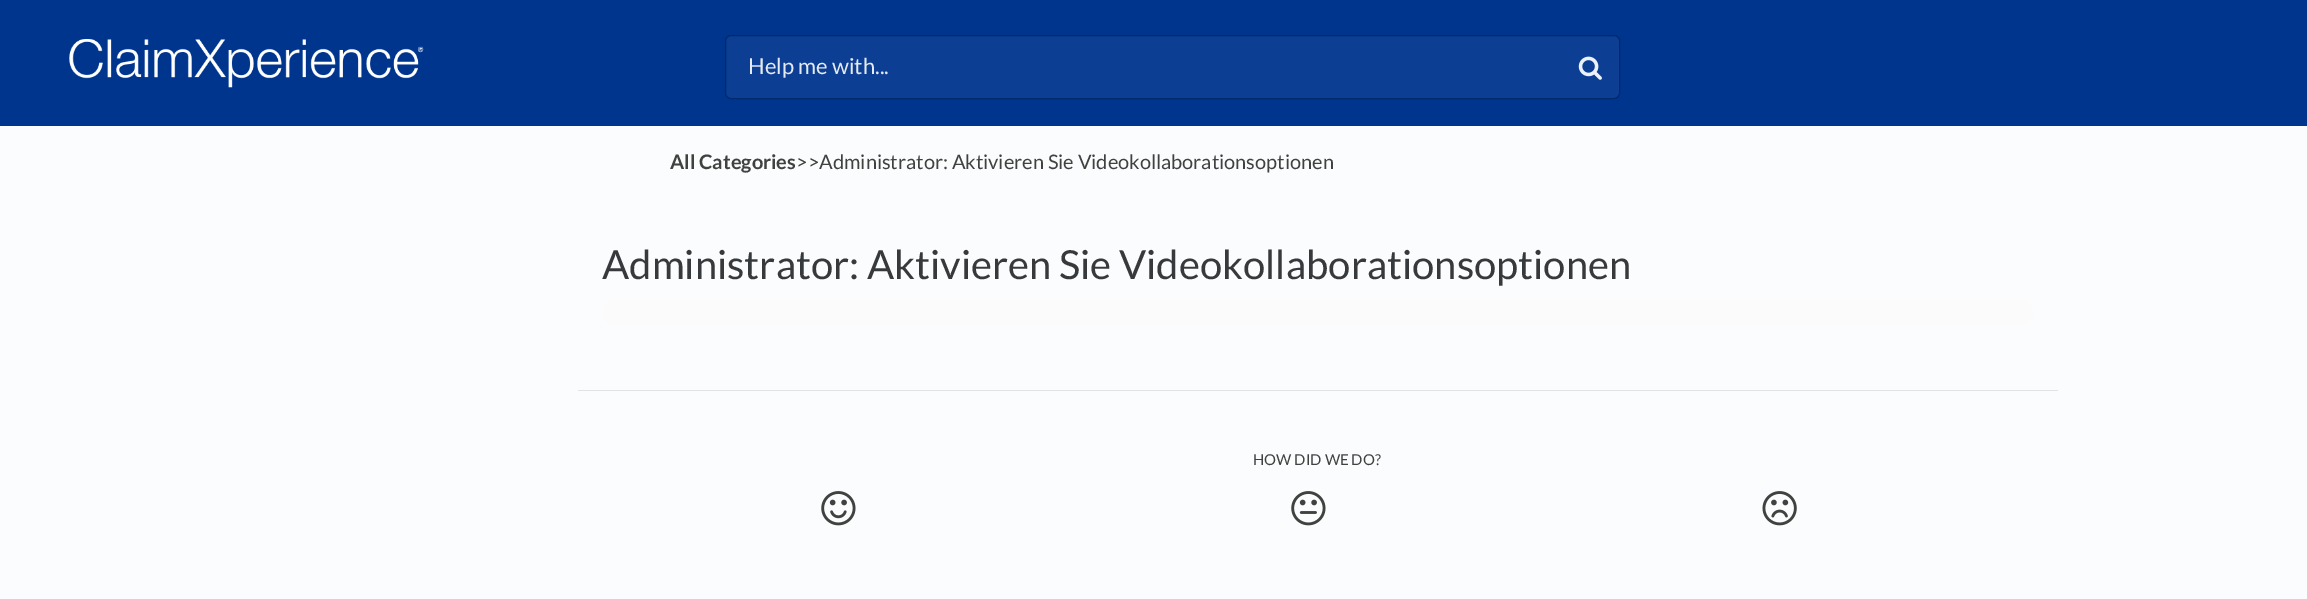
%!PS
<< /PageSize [2307 599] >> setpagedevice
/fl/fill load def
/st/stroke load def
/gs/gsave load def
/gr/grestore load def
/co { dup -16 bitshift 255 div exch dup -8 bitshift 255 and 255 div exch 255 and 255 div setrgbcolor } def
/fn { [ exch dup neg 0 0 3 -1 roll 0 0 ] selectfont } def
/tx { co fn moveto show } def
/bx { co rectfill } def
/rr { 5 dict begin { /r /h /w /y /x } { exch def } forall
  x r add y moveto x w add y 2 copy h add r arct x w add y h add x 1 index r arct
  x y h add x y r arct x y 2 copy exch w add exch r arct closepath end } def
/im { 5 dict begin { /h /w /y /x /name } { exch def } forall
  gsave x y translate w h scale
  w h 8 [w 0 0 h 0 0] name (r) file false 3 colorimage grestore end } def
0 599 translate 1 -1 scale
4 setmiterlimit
0 0 2307 599 16#FBFCFE bx
0 0 2307 126 16#00358E bx
(media/1.raw) 69 38 355 50 im
16#0C3F93 co
725.5 35.5 894 63 5.5 rr gs fl gr
16#00296E co
st
(media/2.raw) 1578 56 24 24 im
16#FBFBFB co
603 300 1430 25 12.5 rr fl
578 390 1480 1 16#E2E3E5 bx
(media/3.raw) 821 491 35 35 im
(media/4.raw) 1291 491 35 35 im
(media/5.raw) 1762 491 35 35 im
(Help me with...) 748 74 /Lato-Regular 22 16#E5EAF3 tx
(All Categories) 670 169 /Lato-Bold 20 16#404240 tx
(>>Administrator: Aktivieren Sie Videokollaborationsoptionen) 796 169 /Lato-Regular 20 16#404240 tx
(Administrator: Aktivieren Sie Videokollaborationsoptionen) 602 279 /Lato-Regular 40 16#373A3C tx
(HOW DID WE DO?) 1253 465 /Lato-Regular 15 16#404240 tx
showpage
